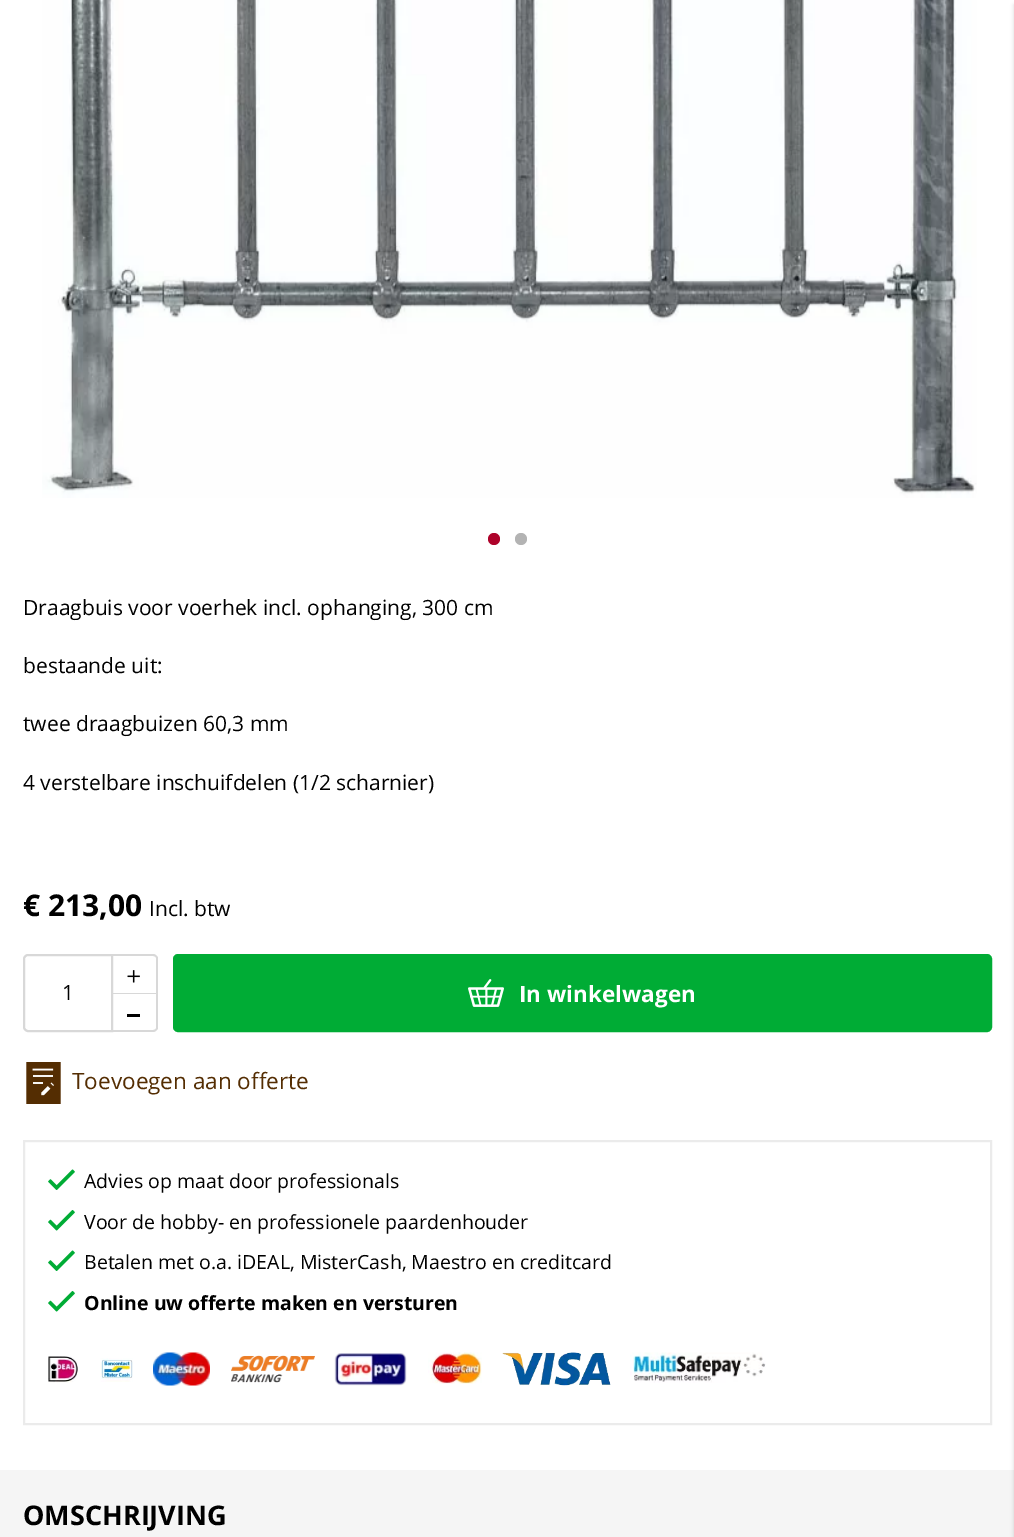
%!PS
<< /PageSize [1014 1537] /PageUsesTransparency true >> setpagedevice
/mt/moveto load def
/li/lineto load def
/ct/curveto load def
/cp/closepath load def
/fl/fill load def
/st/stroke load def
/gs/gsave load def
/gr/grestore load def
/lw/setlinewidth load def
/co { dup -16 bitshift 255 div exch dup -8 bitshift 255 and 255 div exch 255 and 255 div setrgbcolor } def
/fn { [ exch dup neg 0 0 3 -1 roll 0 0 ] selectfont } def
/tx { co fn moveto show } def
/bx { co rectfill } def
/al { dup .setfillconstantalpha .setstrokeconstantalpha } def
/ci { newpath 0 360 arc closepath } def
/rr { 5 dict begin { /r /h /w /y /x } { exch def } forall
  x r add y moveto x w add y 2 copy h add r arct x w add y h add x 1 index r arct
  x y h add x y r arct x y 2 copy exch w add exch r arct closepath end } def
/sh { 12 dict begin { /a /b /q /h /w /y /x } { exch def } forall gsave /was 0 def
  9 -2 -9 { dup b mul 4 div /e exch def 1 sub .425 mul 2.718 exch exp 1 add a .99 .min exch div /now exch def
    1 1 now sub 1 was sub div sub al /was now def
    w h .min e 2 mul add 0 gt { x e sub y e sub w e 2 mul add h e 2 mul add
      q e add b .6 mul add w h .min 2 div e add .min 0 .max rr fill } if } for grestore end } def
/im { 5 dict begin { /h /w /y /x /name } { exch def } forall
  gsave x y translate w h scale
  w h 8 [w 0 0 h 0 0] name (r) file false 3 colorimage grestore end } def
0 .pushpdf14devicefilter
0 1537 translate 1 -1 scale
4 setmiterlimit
0 0 1014 1537 16#FFFFFF bx
(media/1.raw) 42 0 935 498 im
16#AE022A co
494 539 6 ci fl
16#B3B3B3 co
521 539 6 ci fl
16#D8D8D8 co
2 lw
28 955 mt 112 955 li 112 1031 li 28 1031 li 26 1031 24 1029 24 1027 ct 24 959 li 24 957 26 955 28 955 ct cp st
112 954 mt 153 954 li 155 954 158 956 158 958 ct 158 993 li 112 993 li cp 112 956 mt 153 956 li 155 956 156 957 156 958 ct 156 993 li 112 993 li cp eofill
(media/2.raw) 127 970 13 13 im
112 993 mt 158 993 li 158 1028 li 158 1030 155 1032 153 1032 ct 112 1032 li cp 112 994 mt 156 994 li 156 1028 li 156 1029 155 1030 153 1030 ct 112 1030 li cp eofill
127 1014 13 3 16#000000 bx
16#00AC35 co
174 955 817 76 4 rr gs fl gr
st
(media/3.raw) 468 979 36 28 im
(media/4.raw) 26 1062 35 42 im
16#EBEBEB co
24 1141 967 283 rectstroke
(media/5.raw) 48 1169 27 21 im
(media/6.raw) 48 1210 27 21 im
(media/5.raw) 48 1250 27 21 im
(media/6.raw) 48 1291 27 21 im
(media/7.raw) 48 1356 30 27 im
(media/8.raw) 100 1358 33 24 im
(media/9.raw) 153 1352 57 34 im
(media/10.raw) 231 1355 84 28 im
(media/11.raw) 334 1353 73 33 im
(media/12.raw) 428 1352 54 32 im
(media/13.raw) 502 1352 109 34 im
(media/14.raw) 630 1352 136 31 im
0 1470 1014 67 16#F5F5F5 bx
16#000000 co
1014 5 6 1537 0 2 .15 sh
(Draagbuis voor voerhek incl. ophanging, 300 cm) 23 615 /OpenSans-Regular 21 16#000000 tx
(bestaande uit:) 23 673 /OpenSans-Regular 21 16#000000 tx
(twee draagbuizen 60,3 mm) 23 731 /OpenSans-Regular 21 16#000000 tx
(4 verstelbare inschuifdelen \(1/2 scharnier\)) 23 790 /OpenSans-Regular 21 16#000000 tx
(€ 213,00) 23 916 /OpenSans-Bold 30 16#000000 tx
(Incl. btw) 149 916 /OpenSans-Regular 21 16#000000 tx
(1) 62 1000 /OpenSans-Regular 21 16#000000 tx
(In winkelwagen) 519 1002 /OpenSans-Bold 22.5 16#FFFFFF tx
(Toevoegen aan offerte) 72 1089 /OpenSans-Regular 22.5 16#542D02 tx
(Advies op maat door professionals) 84 1188 /OpenSans-Regular 19.5 16#000000 tx
(Voor de hobby- en professionele paardenhouder) 84 1229 /OpenSans-Regular 19.5 16#000000 tx
(Betalen met o.a. iDEAL, MisterCash, Maestro en creditcard) 84 1269 /OpenSans-Regular 19.5 16#000000 tx
(Online uw offerte maken en versturen) 84 1310 /OpenSans-Bold 19.5 16#000000 tx
(OMSCHRIJVING) 23 1525 /OpenSans-Bold 27 16#000000 tx
.poppdf14devicefilter showpage
